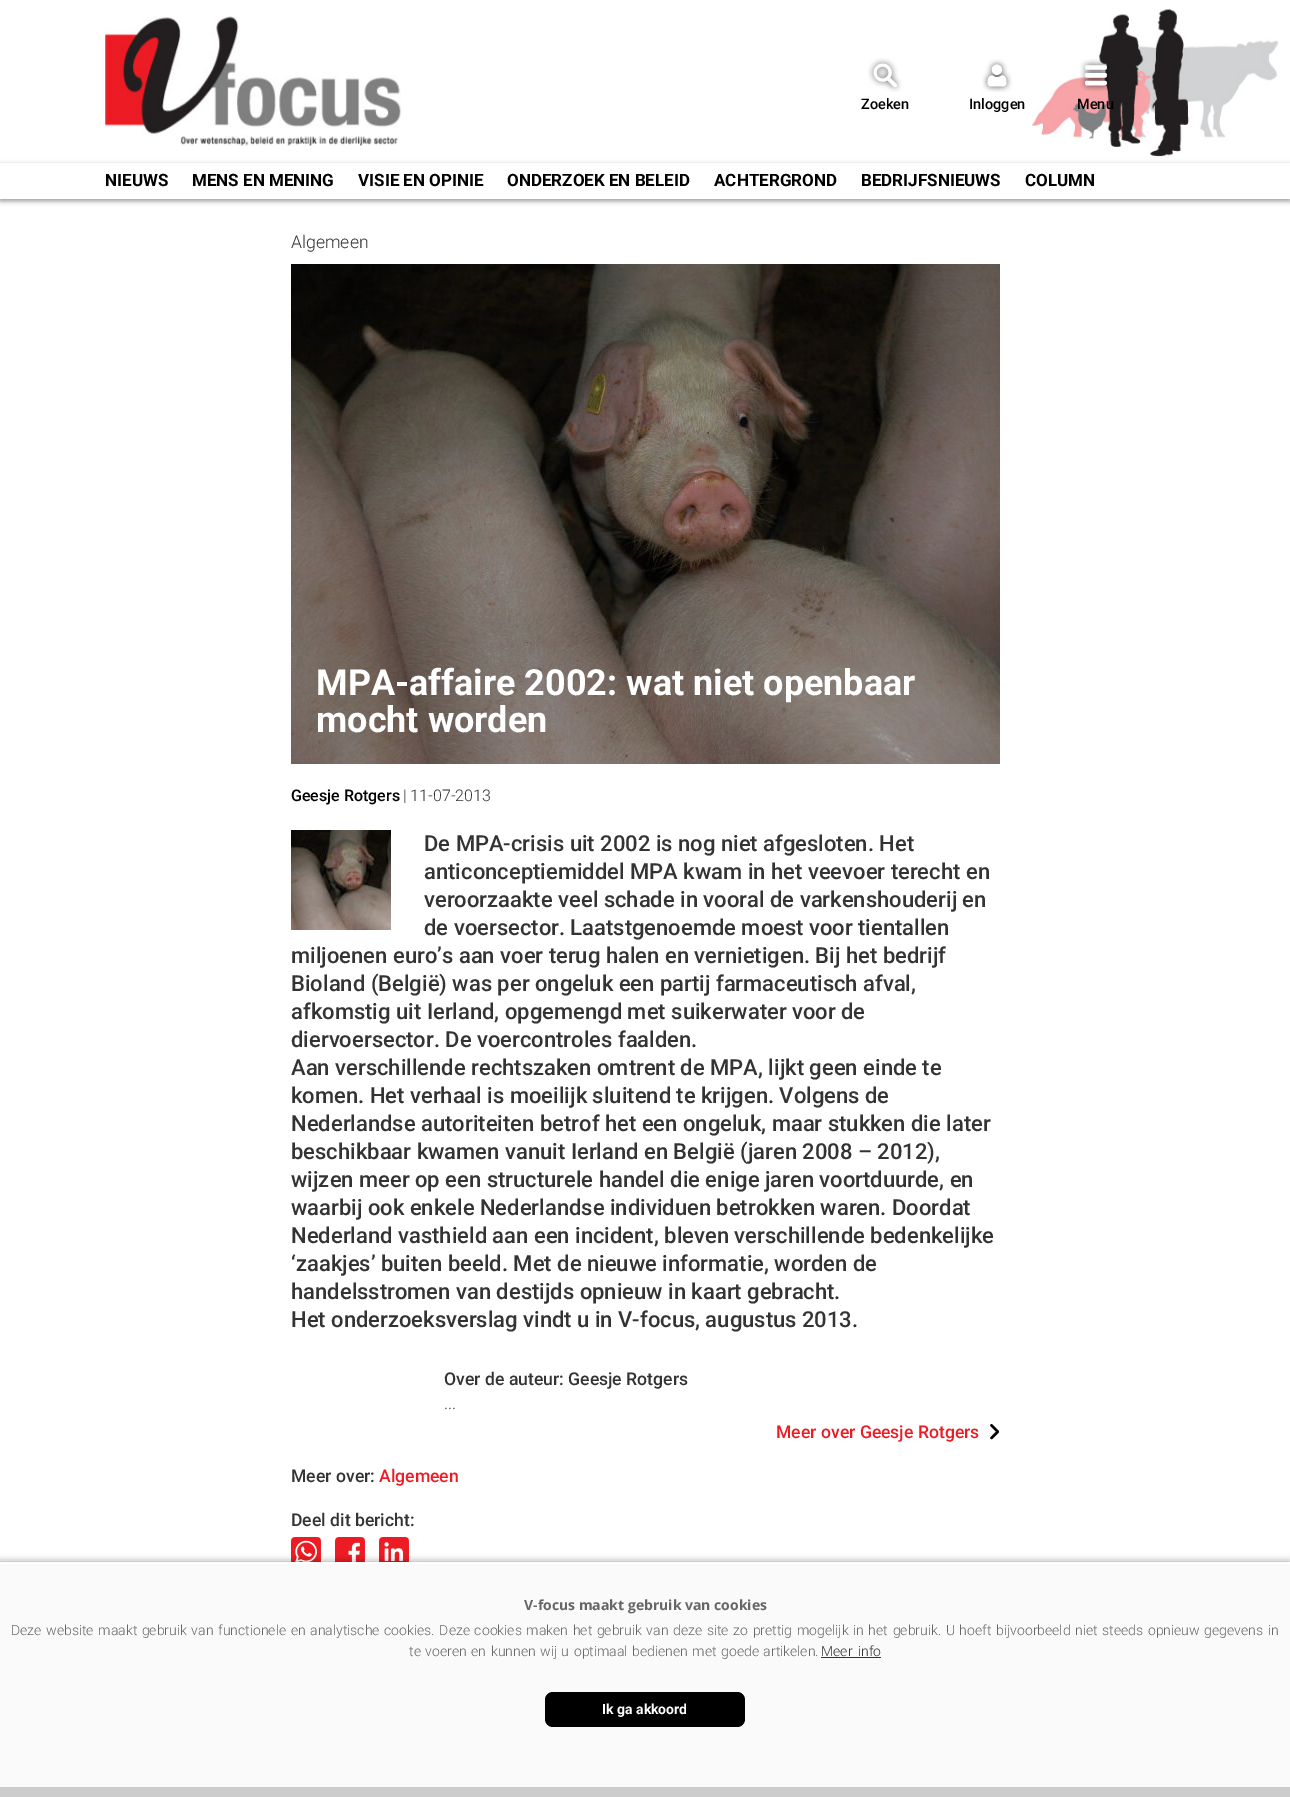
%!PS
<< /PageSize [1290 1797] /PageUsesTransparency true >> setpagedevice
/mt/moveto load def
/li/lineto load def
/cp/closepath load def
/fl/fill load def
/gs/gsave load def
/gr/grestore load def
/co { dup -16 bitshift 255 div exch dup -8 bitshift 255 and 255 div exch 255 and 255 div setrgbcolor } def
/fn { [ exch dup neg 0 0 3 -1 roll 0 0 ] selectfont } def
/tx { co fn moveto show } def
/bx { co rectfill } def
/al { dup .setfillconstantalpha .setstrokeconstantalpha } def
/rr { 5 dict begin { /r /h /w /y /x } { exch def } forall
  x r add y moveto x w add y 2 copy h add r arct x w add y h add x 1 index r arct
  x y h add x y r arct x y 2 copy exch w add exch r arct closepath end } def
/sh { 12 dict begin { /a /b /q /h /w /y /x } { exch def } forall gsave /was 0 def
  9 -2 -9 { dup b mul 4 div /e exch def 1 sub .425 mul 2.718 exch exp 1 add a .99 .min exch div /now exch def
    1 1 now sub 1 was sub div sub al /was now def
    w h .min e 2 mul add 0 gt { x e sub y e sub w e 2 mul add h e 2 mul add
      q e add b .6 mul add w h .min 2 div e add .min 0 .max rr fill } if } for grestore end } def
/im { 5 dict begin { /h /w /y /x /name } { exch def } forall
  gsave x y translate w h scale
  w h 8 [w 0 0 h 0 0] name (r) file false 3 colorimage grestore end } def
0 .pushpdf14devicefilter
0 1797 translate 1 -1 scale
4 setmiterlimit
0 0 1290 1797 16#FFFFFF bx
(media/1.raw) 1031 8 248 149 im
(media/2.raw) 105 16 296 130 im
(media/3.raw) 868 58 34 34 im
(media/4.raw) 982 59 30 33 im
(media/5.raw) 1080 59 29 32 im
gs
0 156 mt 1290 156 li 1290 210 li 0 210 li cp 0 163 mt 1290 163 li 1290 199 li 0 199 li cp eoclip newpath
16#000000 co
0 165 1290 36 0 2.5 .4 sh
gr
(media/6.raw) 291 264 709 500 im
(media/7.raw) 291 830 100 100 im
(media/8.raw) 990 1424 9 16 im
(media/9.raw) 291 1537 30 25 im
(media/10.raw) 335 1537 30 25 im
(media/11.raw) 379 1537 30 25 im
16#000000 co
0 1562 1290 235 0 4 .4 sh
0 1564 1290 223 16#FAFAFA bx
0 1562 1290 2 16#FFFFFF bx
0 1787 1290 10 16#CCCCCC bx
821 1657 60 1 16#333333 bx
16#000000 co
545 1692 200 35 8 rr fl
(Zoeken) 861 109 /Roboto-Medium 14.5 16#000000 tx
(Inloggen) 969 109 /Roboto-Medium 14.5 16#000000 tx
(Menu) 1077 109 /Roboto-Medium 14.5 16#000000 tx
(NIEUWS) 105 186 /Roboto-Bold 17 16#000000 tx
(MENS EN MENING) 192 186 /Roboto-Bold 17 16#000000 tx
(VISIE EN OPINIE) 358 186 /Roboto-Bold 17 16#000000 tx
(ONDERZOEK EN BELEID) 507 186 /Roboto-Bold 17 16#000000 tx
(ACHTERGROND) 714 186 /Roboto-Bold 17 16#000000 tx
(BEDRIJFSNIEUWS) 861 186 /Roboto-Bold 17 16#000000 tx
(COLUMN) 1025 186 /Roboto-Bold 17 16#000000 tx
(Algemeen) 291 248 /Roboto-Light 17.6 16#333333 tx
(MPA-affaire 2002: wat niet openbaar) 316 695 /Roboto-Bold 36 16#FFFFFF tx
(mocht worden) 316 732 /Roboto-Bold 36 16#FFFFFF tx
(Geesje Rotgers) 291 801 /Roboto-Medium 16 16#000000 tx
(| 11-07-2013) 403 801 /Roboto-Light 16 16#333333 tx
(De MPA-crisis uit 2002 is nog niet afgesloten. Het) 424 851 /Roboto-Medium 22 16#333333 tx
(anticonceptiemiddel MPA kwam in het veevoer terecht en) 424 879 /Roboto-Medium 22 16#333333 tx
(veroorzaakte veel schade in vooral de varkenshouderij en) 424 907 /Roboto-Medium 22 16#333333 tx
(de voersector. Laatstgenoemde moest voor tientallen) 424 935 /Roboto-Medium 22 16#333333 tx
(miljoenen euro’s aan voer terug halen en vernietigen. Bij het bedrijf) 291 963 /Roboto-Medium 22 16#333333 tx
(Bioland \(België\) was per ongeluk een partij farmaceutisch afval,) 291 991 /Roboto-Medium 22 16#333333 tx
(afkomstig uit Ierland, opgemengd met suikerwater voor de) 291 1019 /Roboto-Medium 22 16#333333 tx
(diervoersector. De voercontroles faalden.) 291 1047 /Roboto-Medium 22 16#333333 tx
(Aan verschillende rechtszaken omtrent de MPA, lijkt geen einde te) 291 1075 /Roboto-Medium 22 16#333333 tx
(komen. Het verhaal is moeilijk sluitend te krijgen. Volgens de) 291 1103 /Roboto-Medium 22 16#333333 tx
(Nederlandse autoriteiten betrof het een ongeluk, maar stukken die later) 291 1131 /Roboto-Medium 22 16#333333 tx
(beschikbaar kwamen vanuit Ierland en België \(jaren 2008 – 2012\),) 291 1159 /Roboto-Medium 22 16#333333 tx
(wijzen meer op een structurele handel die enige jaren voortduurde, en) 291 1187 /Roboto-Medium 22 16#333333 tx
(waarbij ook enkele Nederlandse individuen betrokken waren. Doordat) 291 1215 /Roboto-Medium 22 16#333333 tx
(Nederland vasthield aan een incident, bleven verschillende bedenkelijke) 291 1243 /Roboto-Medium 22 16#333333 tx
(‘zaakjes’ buiten beeld. Met de nieuwe informatie, worden de) 291 1271 /Roboto-Medium 22 16#333333 tx
(handelsstromen van destijds opnieuw in kaart gebracht.) 291 1299 /Roboto-Medium 22 16#333333 tx
(Het onderzoeksverslag vindt u in V-focus, augustus 2013.) 291 1327 /Roboto-Medium 22 16#333333 tx
(Over de auteur: Geesje Rotgers) 444 1385 /Roboto-Medium 17.6 16#333333 tx
(...) 444 1409 /Roboto-Light 17.6 16#333333 tx
(Meer over Geesje Rotgers) 776 1438 /Roboto-Medium 17.6 16#ED1C24 tx
(Meer over:) 291 1482 /Roboto-Medium 17.6 16#333333 tx
(Algemeen) 379 1482 /Roboto-Medium 17.6 16#ED1C24 tx
(Deel dit bericht:) 291 1526 /Roboto-Medium 17.6 16#333333 tx
(V-focus maakt gebruik van cookies) 524 1610 /OpenSans-Bold 14 16#666666 tx
/Roboto-Light 14 fn
11 1635 mt 1.2 0 32 (Deze website maakt gebruik van functionele en analytische cookies. Deze cookies maken het gebruik van deze site zo prettig mogelijk in het gebruik. U hoeft bijvoorbeeld niet steeds opnieuw gegevens in) widthshow
409 1656 mt 1.1 0 32 (te voeren en kunnen wij u optimaal bedienen met goede artikelen.) widthshow
16#333333 co
821 1656 mt 2 0 32 (Meer info) widthshow
(Ik ga akkoord) 602 1714 /Roboto-Bold 14 16#FFFFFF tx
.poppdf14devicefilter showpage
